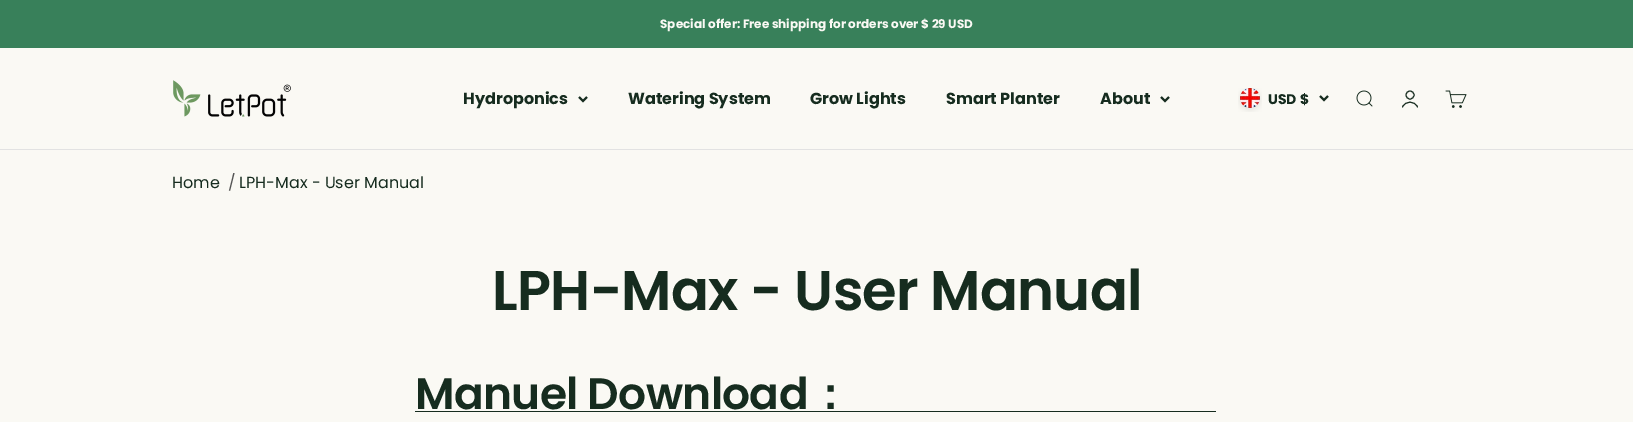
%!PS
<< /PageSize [1633 422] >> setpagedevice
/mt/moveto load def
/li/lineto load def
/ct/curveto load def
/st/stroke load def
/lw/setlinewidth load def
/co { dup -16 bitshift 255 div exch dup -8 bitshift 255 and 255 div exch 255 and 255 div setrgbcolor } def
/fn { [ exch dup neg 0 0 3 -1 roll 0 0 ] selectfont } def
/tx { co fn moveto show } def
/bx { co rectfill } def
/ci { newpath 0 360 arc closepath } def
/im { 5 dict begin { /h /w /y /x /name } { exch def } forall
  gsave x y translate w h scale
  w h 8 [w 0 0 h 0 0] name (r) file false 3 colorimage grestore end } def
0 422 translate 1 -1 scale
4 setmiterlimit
0 0 1633 422 16#FAF9F4 bx
0 0 1633 48 16#38805A bx
0 149 1633 1 16#E2E2E2 bx
(media/1.raw) 173 80 118 37 im
16#162C1F co
2 lw
579 97 mt 583 101 li 587 97 li st
1161 97 mt 1165 101 li 1169 97 li st
(media/2.raw) 1238 88 24 24 im
1320 96 mt 1324 100 li 1328 96 li st
(media/3.raw) 1356 90 17 17 im
1 lw
1410 95 4 ci st
1 setlinecap
1402.5 107 mt 1405.5 100.5 1414.5 100.5 1417.5 107 ct st
(media/4.raw) 1445 90 22 18 im
415 411 801 1 16#162C1F bx
(Special offer: Free shipping for orders over $ 29 USD) 660 28 /Poppins-Bold 12 16#FAF9F4 tx
(Hydroponics) 463 104 /Poppins-Bold 16 16#162C1F tx
(Watering System) 628 104 /Poppins-Bold 16 16#162C1F tx
(Grow Lights) 810 104 /Poppins-Bold 16 16#162C1F tx
(Smart Planter) 946 104 /Poppins-Bold 16 16#162C1F tx
(About) 1100 104 /Poppins-Bold 16 16#162C1F tx
(USD $) 1268 104 /Poppins-Bold 14 16#162C1F tx
(Home) 172 188 /Poppins-Regular 16 16#162C1F tx
(/) 228 188 /Poppins-Regular 16 16#555555 tx
(LPH-Max - User Manual) 239 188 /Poppins-Regular 16 16#162C1F tx
/Poppins-SemiBold 56 fn
492 310 mt -.8 0 (LPH-Max - User Manual) ashow
/Poppins-SemiBold 44 fn
415 409 mt -.7 0 (Manuel Download) ashow
/WenQuanYiZenHei-Bold 44 fn
808 409 mt -.7 0 (：) ashow
showpage
